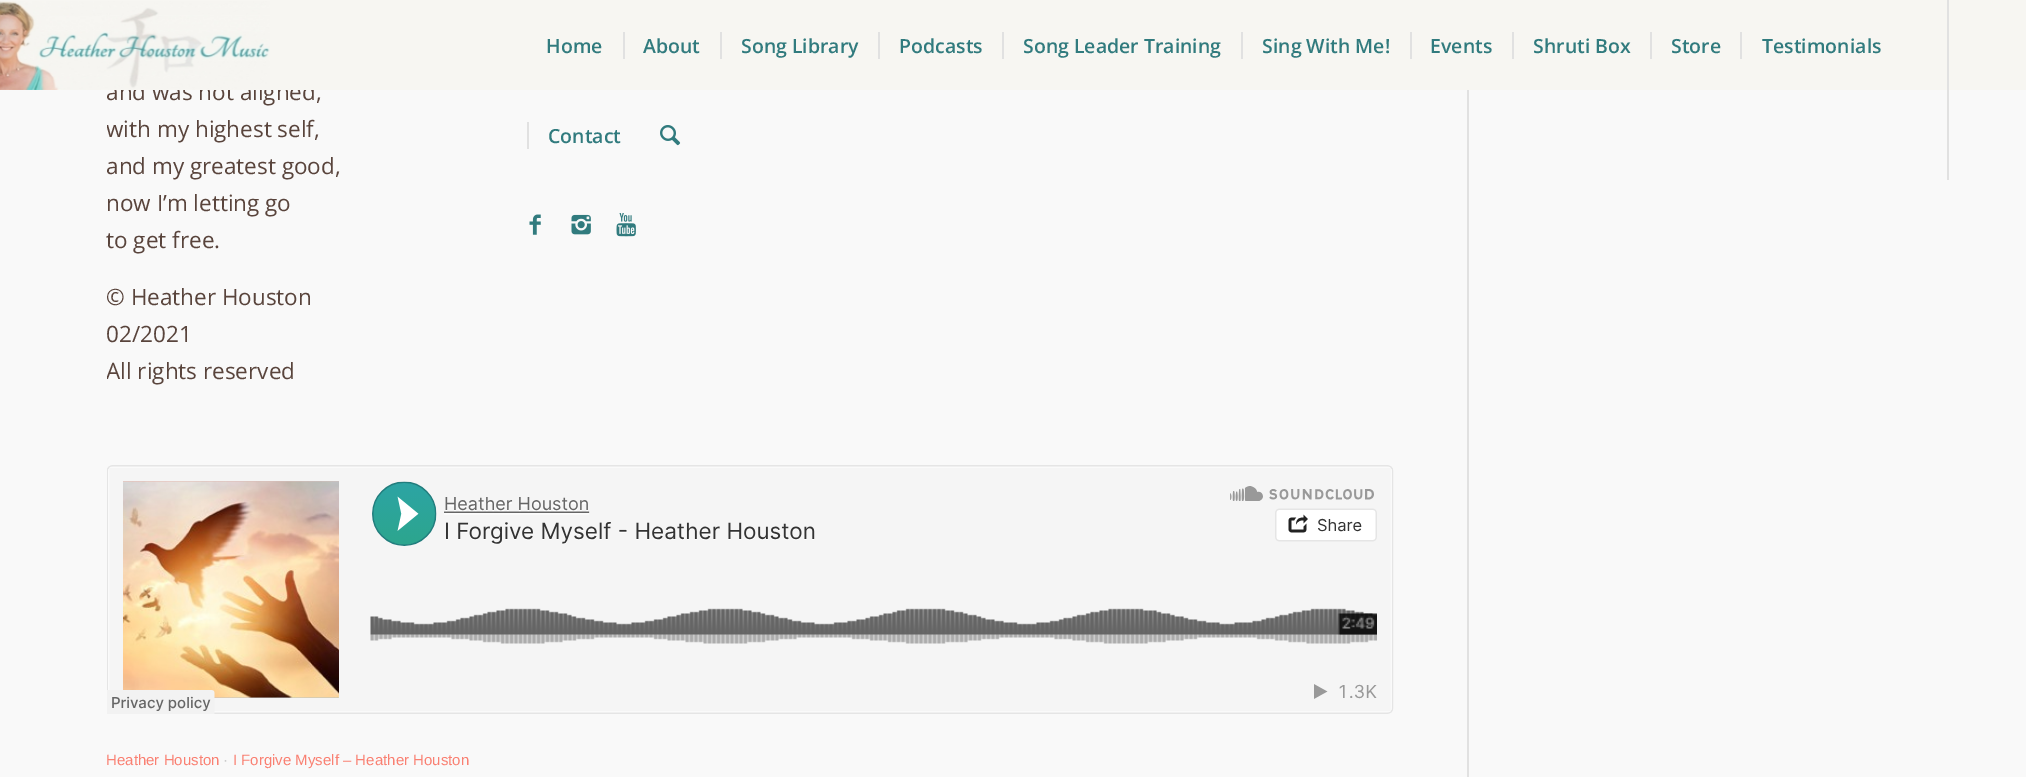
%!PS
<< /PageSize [2026 777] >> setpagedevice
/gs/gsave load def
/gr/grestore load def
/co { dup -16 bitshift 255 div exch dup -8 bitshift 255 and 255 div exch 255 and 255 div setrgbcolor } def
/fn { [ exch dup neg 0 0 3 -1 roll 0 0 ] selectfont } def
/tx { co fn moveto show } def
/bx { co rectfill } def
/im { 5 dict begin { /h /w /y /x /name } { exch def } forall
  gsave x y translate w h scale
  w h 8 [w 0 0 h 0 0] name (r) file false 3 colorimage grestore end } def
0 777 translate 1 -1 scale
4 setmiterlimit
0 0 2026 777 16#F9F9F9 bx
1467 90 2 687 16#E1E1E1 bx
(media/1.raw) 107 465 1287 249 im
527 122 2 27 16#E1E1E1 bx
(media/3.raw) 660 125 21 21 im
(media/4.raw) 529 214 12 21 im
(media/5.raw) 571 214 20 21 im
(media/6.raw) 616 213 20 24 im
(and was not aligned,) 106 100 /OpenSans-Regular 22.5 16#59443C tx
gs
107 0 1360 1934 rectclip
(with my highest self,) 106 137 /OpenSans-Regular 22.5 16#59443C tx
gr
(and my greatest good,) 106 174 /OpenSans-Regular 22.5 16#59443C tx
(now I’m letting go) 106 211 /OpenSans-Regular 22.5 16#59443C tx
(to get free.) 106 248 /OpenSans-Regular 22.5 16#59443C tx
(© Heather Houston) 106 305 /OpenSans-Regular 22.5 16#59443C tx
(02/2021) 106 342 /OpenSans-Regular 22.5 16#59443C tx
gs
107 0 1360 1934 rectclip
(All rights reserved) 106 379 /OpenSans-Regular 22.5 16#59443C tx
gr
(Heather Houston) 106 765 /LiberationSans-Regular 15 16#FA8072 tx
(·) 223 765 /LiberationSans-Regular 15 16#CCCCCC tx
(I Forgive Myself – Heather Houston) 233 765 /LiberationSans-Regular 15 16#FA8072 tx
0 0 2026 90 16#F7F6F2 bx
(media/2.raw) 0 1 270 89 im
1947 0 2 180 16#E1E1E1 bx
(Home) 546 53 /OpenSans-SemiBold 19.5 16#317B7E tx
(About) 643 53 /OpenSans-SemiBold 19.5 16#317B7E tx
623 32 2 27 16#E1E1E1 bx
(Song Library) 741 53 /OpenSans-SemiBold 19.5 16#317B7E tx
720 32 2 27 16#E1E1E1 bx
(Podcasts) 899 53 /OpenSans-SemiBold 19.5 16#317B7E tx
878 32 2 27 16#E1E1E1 bx
(Song Leader Training) 1023 53 /OpenSans-SemiBold 19.5 16#317B7E tx
1002 32 2 27 16#E1E1E1 bx
(Sing With Me!) 1262 53 /OpenSans-SemiBold 19.5 16#317B7E tx
1241 32 2 27 16#E1E1E1 bx
(Events) 1430 53 /OpenSans-SemiBold 19.5 16#317B7E tx
1410 32 2 27 16#E1E1E1 bx
(Shruti Box) 1533 53 /OpenSans-SemiBold 19.5 16#317B7E tx
1512 32 2 27 16#E1E1E1 bx
(Store) 1671 53 /OpenSans-SemiBold 19.5 16#317B7E tx
1650 32 2 27 16#E1E1E1 bx
(Testimonials) 1762 53 /OpenSans-SemiBold 19.5 16#317B7E tx
1740 32 2 27 16#E1E1E1 bx
(Contact) 548 143 /OpenSans-SemiBold 19.5 16#317B7E tx
showpage
